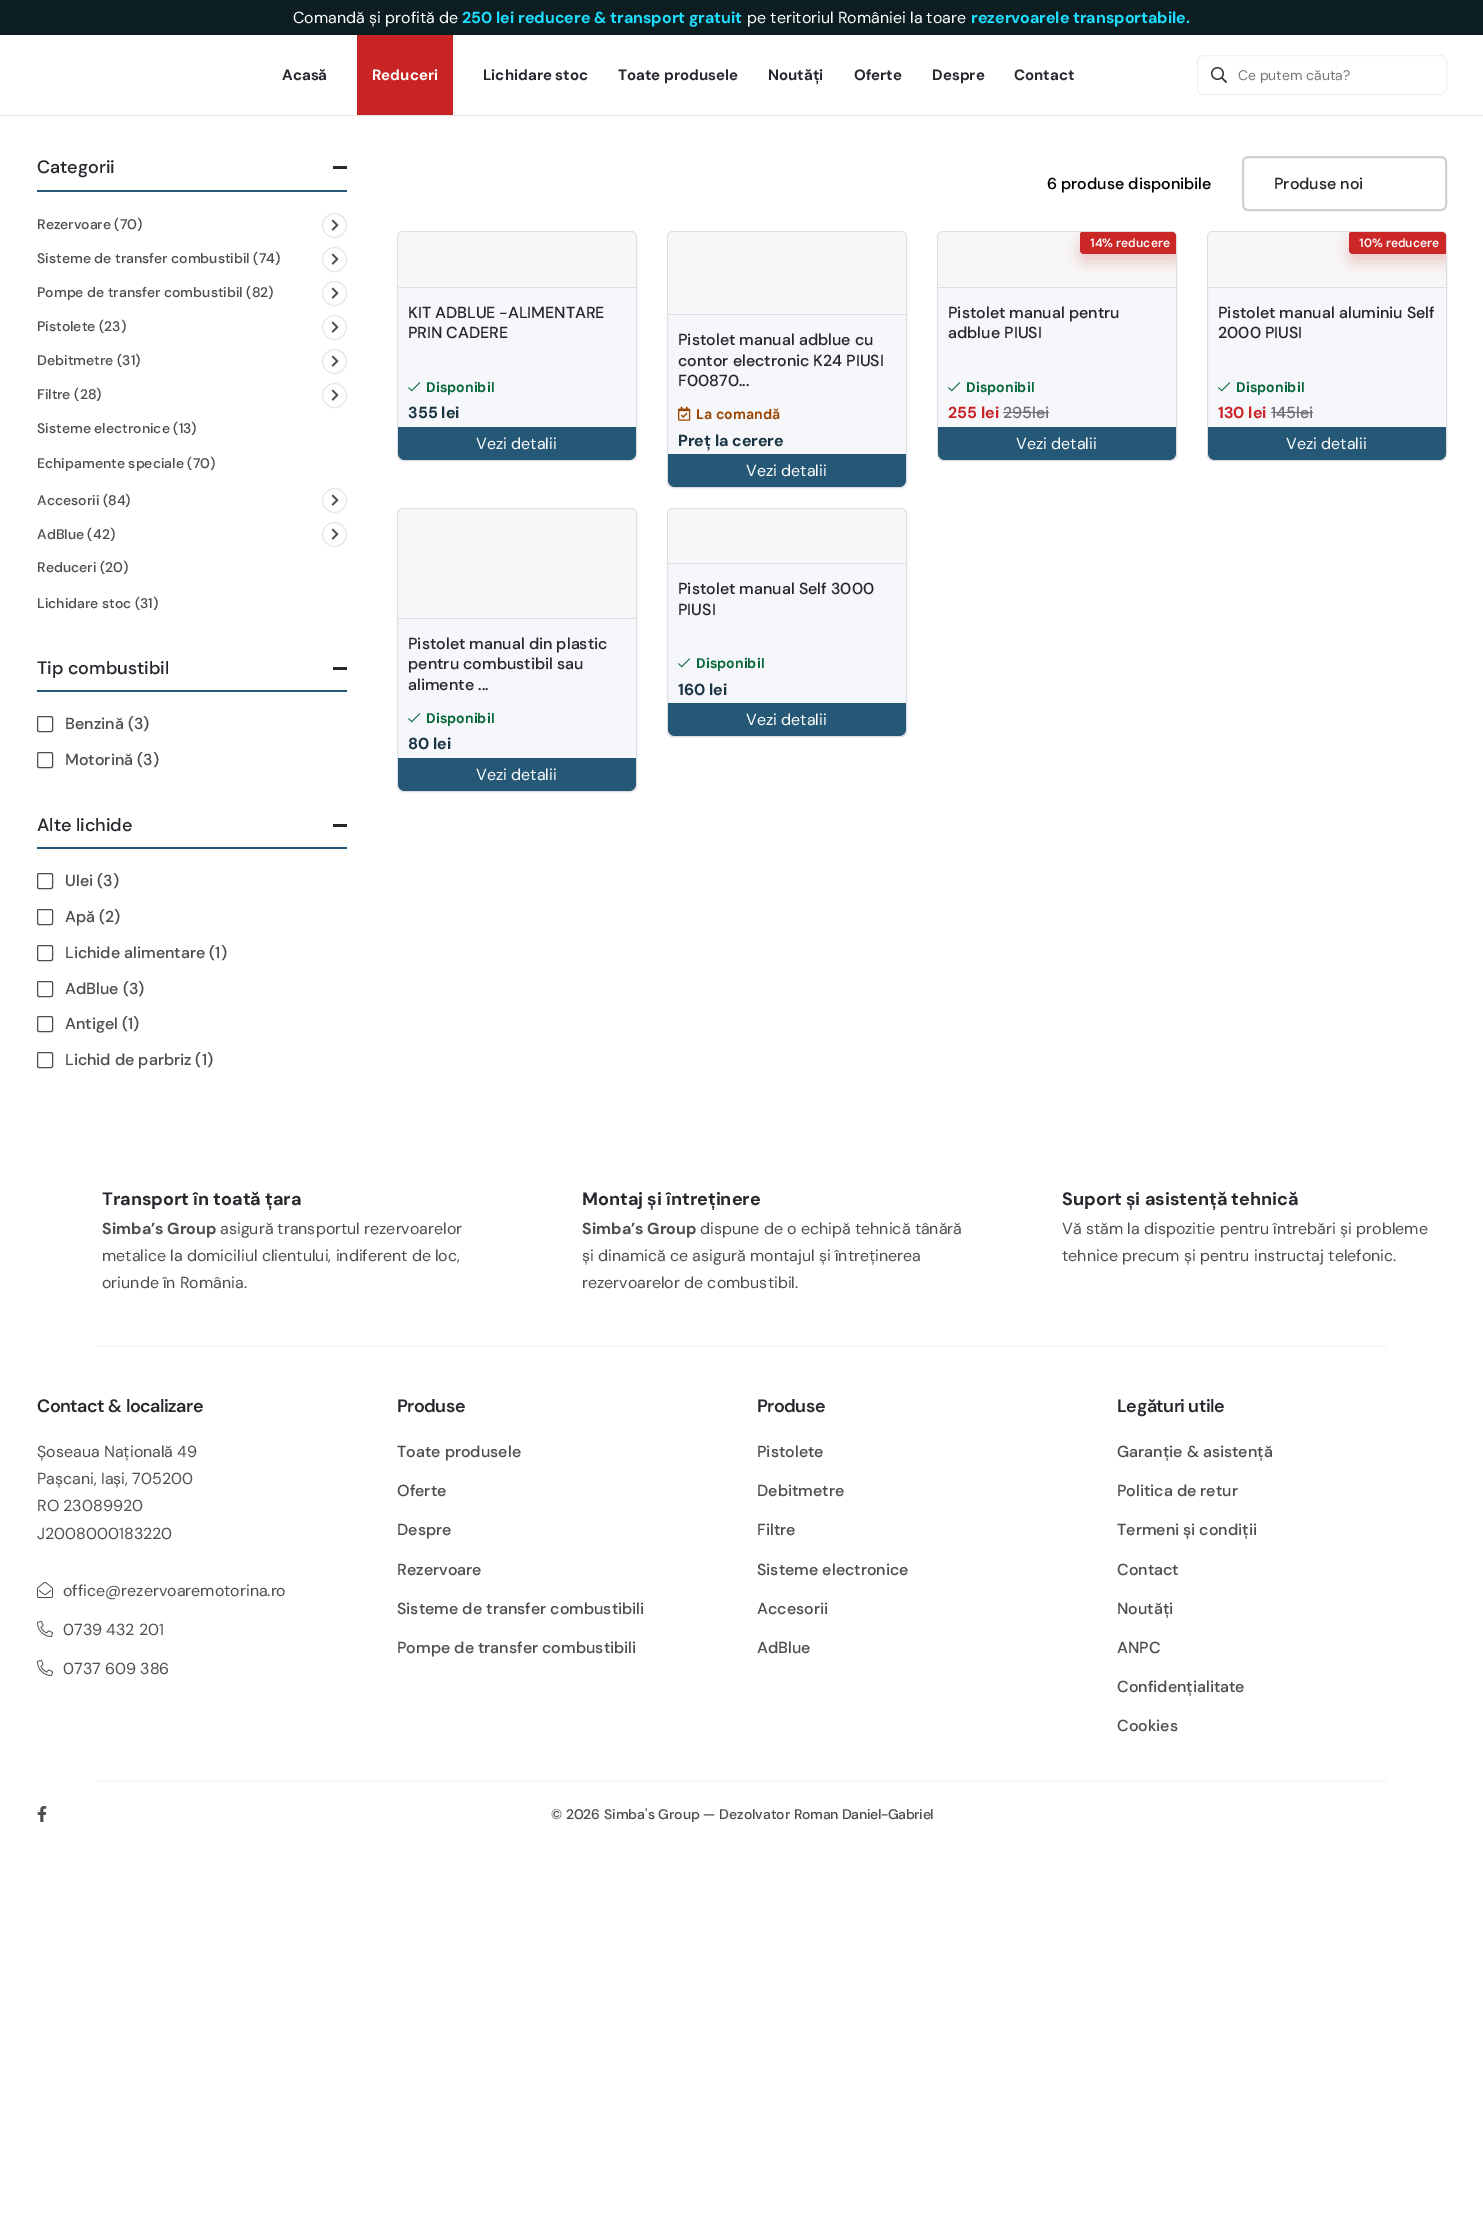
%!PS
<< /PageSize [1483 2228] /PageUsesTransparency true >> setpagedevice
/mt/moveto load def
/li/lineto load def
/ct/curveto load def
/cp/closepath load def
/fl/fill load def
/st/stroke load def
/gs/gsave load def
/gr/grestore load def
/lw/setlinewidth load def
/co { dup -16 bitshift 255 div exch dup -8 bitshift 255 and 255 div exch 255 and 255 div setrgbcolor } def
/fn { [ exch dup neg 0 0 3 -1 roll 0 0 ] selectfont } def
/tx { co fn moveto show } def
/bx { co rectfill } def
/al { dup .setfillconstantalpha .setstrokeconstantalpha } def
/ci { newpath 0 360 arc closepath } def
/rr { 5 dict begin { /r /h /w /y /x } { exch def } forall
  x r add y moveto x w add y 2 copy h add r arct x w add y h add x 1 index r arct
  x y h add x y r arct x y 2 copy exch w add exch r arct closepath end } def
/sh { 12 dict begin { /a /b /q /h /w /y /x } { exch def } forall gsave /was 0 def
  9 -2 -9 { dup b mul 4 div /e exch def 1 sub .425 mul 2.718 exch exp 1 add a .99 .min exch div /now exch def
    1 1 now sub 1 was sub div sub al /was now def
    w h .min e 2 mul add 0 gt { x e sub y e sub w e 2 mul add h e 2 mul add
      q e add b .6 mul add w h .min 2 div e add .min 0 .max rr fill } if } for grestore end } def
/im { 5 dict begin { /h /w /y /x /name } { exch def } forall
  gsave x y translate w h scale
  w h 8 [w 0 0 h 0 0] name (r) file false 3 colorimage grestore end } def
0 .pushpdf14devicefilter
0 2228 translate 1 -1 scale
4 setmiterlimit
0 0 1483 2228 16#FFFFFF bx
0 0 1483 35 16#0C1E22 bx
0 115 1483 1 16#E6E6E6 bx
357 35 96 80 16#C92424 bx
16#F0F0F0 co
1197.5 55.5 249 39 5.5 rr st
(media/1.raw) 1211 67 16 16 im
333 166 14 3 16#27272E bx
37 190 310 2 16#255876 bx
16#E6E6E6 co
334.5 225.5 12 ci st
(media/2.raw) 331 219 8 12 im
334.5 259.5 12 ci st
(media/2.raw) 331 253 8 12 im
334.5 293.5 12 ci st
(media/2.raw) 331 287 8 12 im
334.5 327.5 12 ci st
(media/2.raw) 331 321 8 12 im
334.5 361.5 12 ci st
(media/2.raw) 331 355 8 12 im
334.5 395.5 12 ci st
(media/2.raw) 331 389 8 12 im
334.5 500.5 12 ci st
(media/2.raw) 331 494 8 12 im
334.5 534.5 12 ci st
(media/2.raw) 331 528 8 12 im
333 667 14 3 16#27272E bx
37 690 310 2 16#255876 bx
16#4E4E4E co
37.5 716.5 15 15 1.5 rr st
37.5 752.5 15 15 1.5 rr st
333 824 14 3 16#27272E bx
37 847 310 2 16#255876 bx
16#4E4E4E co
37.5 873.5 15 15 1.5 rr st
37.5 909.5 15 15 1.5 rr st
37.5 945.5 15 15 1.5 rr st
37.5 981.5 15 15 1.5 rr st
37.5 1016.5 15 15 1.5 rr st
37.5 1052.5 15 15 1.5 rr st
16#CBD3D9 co
2 lw
1243 157 203 53 5 rr st
16#F6F7FB co
397.5 231.5 239 229 5.5 rr gs fl gr
16#DDDEE2 co
1 lw
st
398 287 238 1 16#DDDEE2 bx
gs
398 232 238 228 5 rr clip newpath
16#F7F7F7 co
404 232 mt 630 232 li 633.5 232 636 234.5 636 238 ct 636 287 li 398 287 li 398 238 li 398 234.5 400.5 232 404 232 ct cp fl
gr
(media/3.raw) 408 382 13 10 im
16#255876 co
398 427 mt 636 427 li 636 453 li 636 457 633 460 629 460 ct 405 460 li 401 460 398 457 398 453 ct cp fl
16#F6F7FB co
667.5 231.5 239 256 5.5 rr gs fl gr
16#DDDEE2 co
st
668 314 238 1 16#DDDEE2 bx
gs
668 232 238 255 5 rr clip newpath
16#F7F7F7 co
674 232 mt 900 232 li 903.5 232 906 234.5 906 238 ct 906 314 li 668 314 li 668 238 li 668 234.5 670.5 232 674 232 ct cp fl
gr
(media/4.raw) 678 406 13 15 im
16#255876 co
668 454 mt 906 454 li 906 480 li 906 484 903 487 899 487 ct 675 487 li 671 487 668 484 668 480 ct cp fl
16#F6F7FB co
937.5 231.5 239 229 5.5 rr gs fl gr
16#DDDEE2 co
st
938 287 238 1 16#DDDEE2 bx
gs
938 232 238 228 5 rr clip newpath
16#F7F7F7 co
944 232 mt 1170 232 li 1173.5 232 1176 234.5 1176 238 ct 1176 287 li 938 287 li 938 238 li 938 234.5 940.5 232 944 232 ct cp fl
gr
gs
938 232 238 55 rectclip
16#D55151 co
1080 239 100 23 4 8 .3 sh
gr
gs
938 232 238 228 5 rr clip newpath
16#CB2727 co
1080 231 100 23 4 rr fl
gr
(media/3.raw) 948 382 13 10 im
1003 412 46 1 16#6F7076 bx
16#255876 co
938 427 mt 1176 427 li 1176 453 li 1176 457 1173 460 1169 460 ct 945 460 li 941 460 938 457 938 453 ct cp fl
16#F6F7FB co
1207.5 231.5 239 229 5.5 rr gs fl gr
16#DDDEE2 co
st
1208 287 238 1 16#DDDEE2 bx
gs
1208 232 238 228 5 rr clip newpath
16#F7F7F7 co
1214 232 mt 1440 232 li 1443.5 232 1446 234.5 1446 238 ct 1446 287 li 1208 287 li 1208 238 li 1208 234.5 1210.5 232 1214 232 ct cp fl
gr
gs
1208 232 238 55 rectclip
16#D55151 co
1349 239 101 23 4 8 .3 sh
gr
gs
1208 232 238 228 5 rr clip newpath
16#CB2727 co
1349 231 101 23 4 rr fl
gr
(media/3.raw) 1218 382 13 10 im
1271 412 42 1 16#6F7076 bx
16#255876 co
1208 427 mt 1446 427 li 1446 453 li 1446 457 1443 460 1439 460 ct 1215 460 li 1211 460 1208 457 1208 453 ct cp fl
16#F6F7FB co
397.5 508.5 239 283 5.5 rr gs fl gr
16#DDDEE2 co
st
398 618 238 1 16#DDDEE2 bx
gs
398 509 238 282 5 rr clip newpath
16#F7F7F7 co
404 509 mt 630 509 li 633.5 509 636 511.5 636 515 ct 636 618 li 398 618 li 398 515 li 398 511.5 400.5 509 404 509 ct cp fl
gr
(media/3.raw) 408 713 13 10 im
16#255876 co
398 758 mt 636 758 li 636 784 li 636 788 633 791 629 791 ct 405 791 li 401 791 398 788 398 784 ct cp fl
16#F6F7FB co
667.5 508.5 239 228 5.5 rr gs fl gr
16#DDDEE2 co
st
668 563 238 1 16#DDDEE2 bx
gs
668 509 238 227 5 rr clip newpath
16#F7F7F7 co
674 509 mt 900 509 li 903.5 509 906 511.5 906 515 ct 906 563 li 668 563 li 668 515 li 668 511.5 670.5 509 674 509 ct cp fl
gr
(media/3.raw) 678 658 13 10 im
16#255876 co
668 703 mt 906 703 li 906 729 li 906 733 903 736 899 736 ct 675 736 li 671 736 668 733 668 729 ct cp fl
16#F6F7FB co
97 1345 1290 2 1 rr fl
(media/5.raw) 37 1582 16 16 im
(media/6.raw) 37 1621 16 16 im
(media/6.raw) 37 1660 16 16 im
97 1780 1290 2 1 rr fl
(media/7.raw) 37 1806 10 16 im
(Comandă și profită de) 293 23 /DMSans-Regular 16 16#FFFFFF tx
(250 lei reducere & transport gratuit) 462 23 /DMSans-Bold 16 16#1EDEFF tx
(pe teritoriul României la toare) 747 23 /DMSans-Regular 16 16#FFFFFF tx
(rezervoarele transportabile.) 971 23 /DMSans-Bold 16 16#1EDEFF tx
(Acasă) 282 80 /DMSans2-Bold 15 16#27272E tx
(Reduceri) 372 80 /DMSans2-Bold 15 16#FFFFFF tx
(Lichidare stoc) 483 80 /DMSans2-Bold 15 16#27272E tx
(Toate produsele) 618 80 /DMSans2-Bold 15 16#27272E tx
(Noutăți) 768 80 /DMSans2-Bold 15 16#27272E tx
(Oferte) 854 80 /DMSans2-Bold 15 16#27272E tx
(Despre) 932 80 /DMSans2-Bold 15 16#27272E tx
(Contact) 1014 80 /DMSans2-Bold 15 16#27272E tx
(Ce putem căuta?) 1238 80 /DMSans2-Regular 14 16#757575 tx
(Categorii) 37 173 /DMSans-Medium 18 16#27272E tx
(Rezervoare \(70\)) 37 229 /DMSans-Medium 14 16#4E4E4E tx
(Sisteme de transfer combustibil \(74\)) 37 263 /DMSans-Medium 14 16#4E4E4E tx
(Pompe de transfer combustibil \(82\)) 37 297 /DMSans-Medium 14 16#4E4E4E tx
(Pistolete \(23\)) 37 331 /DMSans-Medium 14 16#4E4E4E tx
(Debitmetre \(31\)) 37 365 /DMSans-Medium 14 16#4E4E4E tx
(Filtre \(28\)) 37 399 /DMSans-Medium 14 16#4E4E4E tx
(Sisteme electronice \(13\)) 37 433 /DMSans-Medium 14 16#4E4E4E tx
(Echipamente speciale \(70\)) 37 468 /DMSans-Medium 14 16#4E4E4E tx
(Accesorii \(84\)) 37 505 /DMSans-Medium 14 16#4E4E4E tx
(AdBlue \(42\)) 37 539 /DMSans-Medium 14 16#4E4E4E tx
(Reduceri \(20\)) 37 572 /DMSans-Medium 14 16#4E4E4E tx
(Lichidare stoc \(31\)) 37 608 /DMSans-Medium 14 16#4E4E4E tx
(Tip combustibil) 37 674 /DMSans-Medium 18 16#27272E tx
(Benzină \(3\)) 65 729 /DMSans-Medium 16 16#4E4E4E tx
(Motorină \(3\)) 65 765 /DMSans-Medium 16 16#4E4E4E tx
(Alte lichide) 37 831 /DMSans-Medium 18 16#27272E tx
(Ulei \(3\)) 65 886 /DMSans-Medium 16 16#4E4E4E tx
(Apă \(2\)) 65 922 /DMSans-Medium 16 16#4E4E4E tx
(Lichide alimentare \(1\)) 65 958 /DMSans-Medium 16 16#4E4E4E tx
(AdBlue \(3\)) 65 994 /DMSans-Medium 16 16#4E4E4E tx
(Antigel \(1\)) 65 1029 /DMSans-Medium 16 16#4E4E4E tx
(Lichid de parbriz \(1\)) 65 1065 /DMSans-Medium 16 16#4E4E4E tx
(6 produse disponibile) 1047 189 /DMSans-Medium 16 16#000000 tx
(Produse noi) 1274 189 /DMSans-Medium 16 16#27272E tx
(KIT ADBLUE -ALIMENTARE) 408 318 /DMSans-Medium 16 16#27272E tx
(PRIN CADERE) 408 338 /DMSans-Medium 16 16#27272E tx
(Disponibil) 426 392 /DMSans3-Bold 14 16#09683C tx
(355 lei) 408 418 /DMSans-Bold 16 16#193342 tx
(Vezi detalii) 476 449 /DMSans-Regular 16 16#FFFFFF tx
(Pistolet manual adblue cu) 678 345 /DMSans-Medium 16 16#27272E tx
(contor electronic K24 PIUSI) 678 366 /DMSans-Medium 16 16#27272E tx
(F00870...) 678 386 /DMSans-Medium 16 16#27272E tx
(La comandă) 696 419 /DMSans3-Bold 14 16#9B4703 tx
(Preț la cerere) 678 446 /DMSans-Bold 16 16#193342 tx
(Vezi detalii) 746 476 /DMSans-Regular 16 16#FFFFFF tx
(14% reducere) 1090 247 /DMSans2-SemiBold 12 16#FFFFFF tx
(Pistolet manual pentru) 948 318 /DMSans-Medium 16 16#27272E tx
(adblue PIUSI) 948 338 /DMSans-Medium 16 16#27272E tx
(Disponibil) 966 392 /DMSans3-Bold 14 16#09683C tx
(255 lei) 948 418 /DMSans-Bold 16 16#CB2323 tx
(295lei) 1003 418 /DMSans-Medium 16 16#6F7076 tx
(Vezi detalii) 1016 449 /DMSans-Regular 16 16#FFFFFF tx
(10% reducere) 1359 247 /DMSans2-SemiBold 12 16#FFFFFF tx
(Pistolet manual aluminiu Self) 1218 318 /DMSans-Medium 16 16#27272E tx
(2000 PIUSI) 1218 338 /DMSans-Medium 16 16#27272E tx
(Disponibil) 1236 392 /DMSans3-Bold 14 16#09683C tx
(130 lei) 1218 418 /DMSans-Bold 16 16#CB2323 tx
(145lei) 1271 418 /DMSans-Medium 16 16#6F7076 tx
(Vezi detalii) 1286 449 /DMSans-Regular 16 16#FFFFFF tx
(Pistolet manual din plastic) 408 649 /DMSans-Medium 16 16#27272E tx
(pentru combustibil sau) 408 669 /DMSans-Medium 16 16#27272E tx
(alimente ...) 408 690 /DMSans-Medium 16 16#27272E tx
(Disponibil) 426 723 /DMSans3-Bold 14 16#09683C tx
(80 lei) 408 749 /DMSans-Bold 16 16#193342 tx
(Vezi detalii) 476 780 /DMSans-Regular 16 16#FFFFFF tx
(Pistolet manual Self 3000) 678 594 /DMSans-Medium 16 16#27272E tx
(PIUSI) 678 615 /DMSans-Medium 16 16#27272E tx
(Disponibil) 696 668 /DMSans3-Bold 14 16#09683C tx
(160 lei) 678 695 /DMSans-Bold 16 16#193342 tx
(Vezi detalii) 746 725 /DMSans-Regular 16 16#FFFFFF tx
(Transport în toată țara) 102 1205 /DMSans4-Bold 18 16#27272E tx
(Simba’s Group) 102 1234 /DMSans-Bold 16 16#4E4E4E tx
(asigură transportul rezervoarelor) 220 1234 /DMSans-Regular 16 16#4E4E4E tx
(metalice la domiciliul clientului, indiferent de loc,) 102 1261 /DMSans-Regular 16 16#4E4E4E tx
(oriunde în România.) 102 1288 /DMSans-Regular 16 16#4E4E4E tx
(Montaj și întreținere) 582 1205 /DMSans4-Bold 18 16#27272E tx
(Simba’s Group) 582 1234 /DMSans-Bold 16 16#4E4E4E tx
(dispune de o echipă tehnică tânără) 700 1234 /DMSans-Regular 16 16#4E4E4E tx
(și dinamică ce asigură montajul și întreținerea) 582 1261 /DMSans-Regular 16 16#4E4E4E tx
(rezervoarelor de combustibil.) 582 1288 /DMSans-Regular 16 16#4E4E4E tx
(Suport și asistență tehnică) 1062 1205 /DMSans4-Bold 18 16#27272E tx
(Vă stăm la dispozitie pentru întrebări și probleme) 1062 1234 /DMSans-Regular 16 16#4E4E4E tx
(tehnice precum și pentru instructaj telefonic.) 1062 1261 /DMSans-Regular 16 16#4E4E4E tx
/DMSans-SemiBold 18 fn
16#27272E co
37 1412 mt -.5 0 (Contact & localizare) ashow
(Șoseaua Națională 49) 37 1457 /DMSans-Regular 16 16#4E4E4E tx
(Pașcani, Iași, 705200) 37 1484 /DMSans-Regular 16 16#4E4E4E tx
(RO 23089920) 37 1511 /DMSans-Regular 16 16#4E4E4E tx
(J2008000183220) 37 1539 /DMSans-Regular 16 16#4E4E4E tx
(office@rezervoaremotorina.ro) 63 1596 /DMSans-Regular 16 16#4E4E4E tx
(0739 432 201) 63 1635 /DMSans-Regular 16 16#4E4E4E tx
(0737 609 386) 63 1674 /DMSans-Regular 16 16#4E4E4E tx
/DMSans-SemiBold 18 fn
16#27272E co
397 1412 mt -.5 0 (Produse) ashow
(Toate produsele) 397 1457 /DMSans-Medium 16 16#4E4E4E tx
(Oferte) 397 1496 /DMSans-Medium 16 16#4E4E4E tx
(Despre) 397 1535 /DMSans-Medium 16 16#4E4E4E tx
(Rezervoare) 397 1575 /DMSans-Medium 16 16#4E4E4E tx
(Sisteme de transfer combustibili) 397 1614 /DMSans-Medium 16 16#4E4E4E tx
(Pompe de transfer combustibili) 397 1653 /DMSans-Medium 16 16#4E4E4E tx
/DMSans-SemiBold 18 fn
16#27272E co
757 1412 mt -.5 0 (Produse) ashow
(Pistolete) 757 1457 /DMSans-Medium 16 16#4E4E4E tx
(Debitmetre) 757 1496 /DMSans-Medium 16 16#4E4E4E tx
(Filtre) 757 1535 /DMSans-Medium 16 16#4E4E4E tx
(Sisteme electronice) 757 1575 /DMSans-Medium 16 16#4E4E4E tx
(Accesorii) 757 1614 /DMSans-Medium 16 16#4E4E4E tx
(AdBlue) 757 1653 /DMSans-Medium 16 16#4E4E4E tx
/DMSans-SemiBold 18 fn
16#27272E co
1117 1412 mt -.5 0 (Legături utile) ashow
(Garanție & asistență) 1117 1457 /DMSans-Medium 16 16#4E4E4E tx
(Politica de retur) 1117 1496 /DMSans-Medium 16 16#4E4E4E tx
(Termeni și condiții) 1117 1535 /DMSans-Medium 16 16#4E4E4E tx
(Contact) 1117 1575 /DMSans-Medium 16 16#4E4E4E tx
(Noutăți) 1117 1614 /DMSans-Medium 16 16#4E4E4E tx
(ANPC) 1117 1653 /DMSans-Medium 16 16#4E4E4E tx
(Confidențialitate) 1117 1692 /DMSans-Medium 16 16#4E4E4E tx
(Cookies) 1117 1731 /DMSans-Medium 16 16#4E4E4E tx
(© 2026 Simba's Group — Dezolvator) 551 1819 /DMSans-Medium 14 16#4E4E4E tx
794 1819 mt -.3 0 (Roman Daniel-Gabriel) ashow
.poppdf14devicefilter showpage
